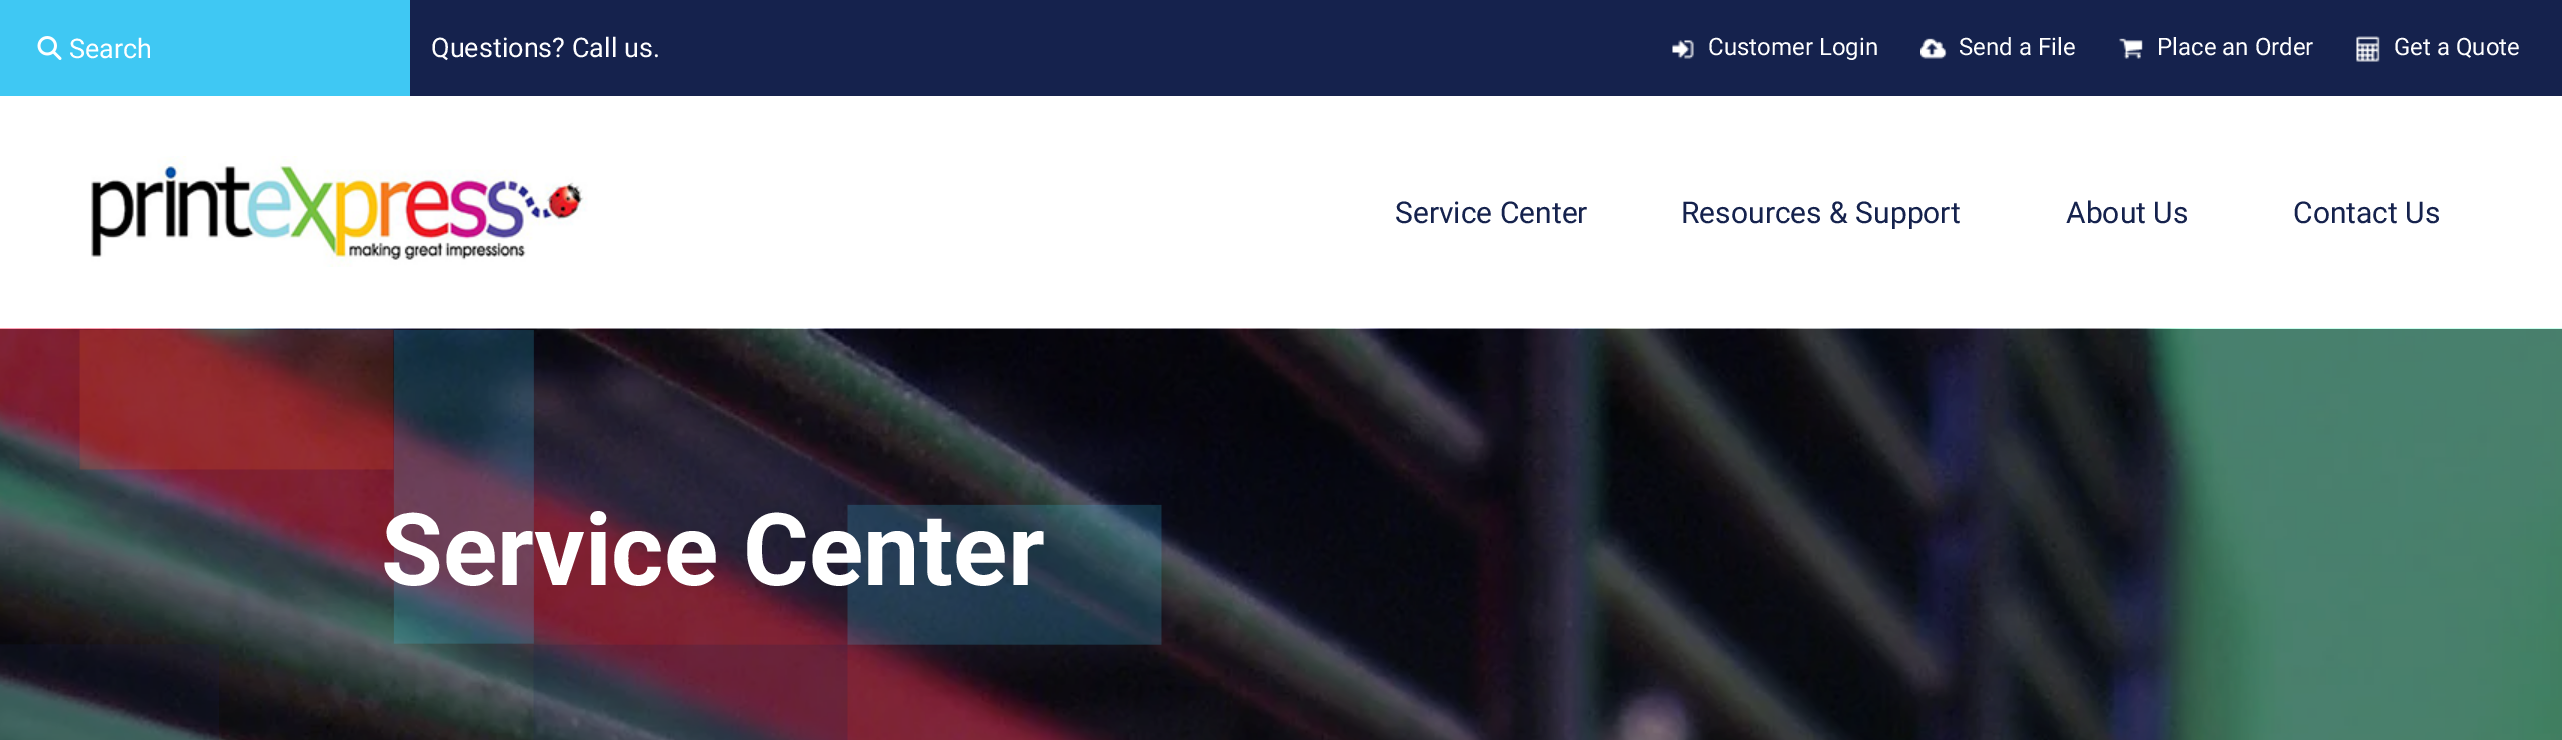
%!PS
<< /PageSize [2562 740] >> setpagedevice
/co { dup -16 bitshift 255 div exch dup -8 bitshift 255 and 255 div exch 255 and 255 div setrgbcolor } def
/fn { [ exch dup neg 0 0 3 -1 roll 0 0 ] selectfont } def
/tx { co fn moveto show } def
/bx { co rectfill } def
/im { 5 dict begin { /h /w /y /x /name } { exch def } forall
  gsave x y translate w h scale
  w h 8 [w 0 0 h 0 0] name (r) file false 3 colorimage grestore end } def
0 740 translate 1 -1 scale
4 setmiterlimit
0 0 2562 740 16#FFFFFF bx
410 0 2152 96 16#15224D bx
0 0 410 96 16#3FC8F3 bx
(media/1.raw) 37 36 25 24 im
(media/2.raw) 1672 40 22 19 im
(media/3.raw) 1920 38 27 21 im
(media/4.raw) 2119 38 24 21 im
(media/5.raw) 2356 36 24 26 im
(media/6.raw) 91 156 497 111 im
(media/7.raw) 0 328 2562 412 im
(media/8.raw) 0 329 1162 411 im
(Search) 69 58 /Roboto-Regular 27 16#FFFFFF tx
(Questions? Call us.) 431 57 /Roboto-Regular 27 16#FFFFFF tx
(Customer Login) 1708 55 /Roboto-Regular 24 16#FFFFFF tx
(Send a File) 1959 55 /Roboto-Regular 24 16#FFFFFF tx
(Place an Order) 2157 55 /Roboto-Regular 24 16#FFFFFF tx
(Get a Quote) 2394 55 /Roboto-Regular 24 16#FFFFFF tx
(Service Center) 1395 223 /Roboto-Regular 30 16#15224D tx
(Resources & Support) 1681 223 /Roboto-Regular 30 16#15224D tx
(About Us) 2066 223 /Roboto-Regular 30 16#15224D tx
(Contact Us) 2293 223 /Roboto-Regular 30 16#15224D tx
(Service Center) 381 585 /Roboto-Bold 100.5 16#FFFFFF tx
showpage
